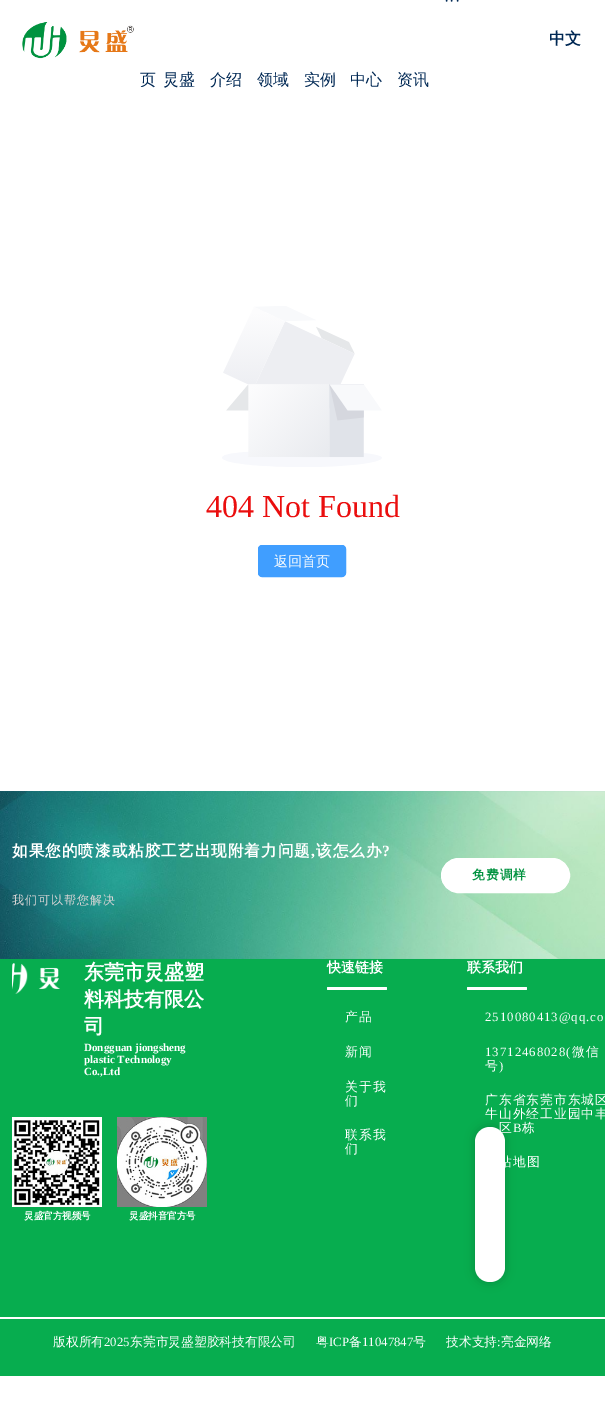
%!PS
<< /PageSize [605 1424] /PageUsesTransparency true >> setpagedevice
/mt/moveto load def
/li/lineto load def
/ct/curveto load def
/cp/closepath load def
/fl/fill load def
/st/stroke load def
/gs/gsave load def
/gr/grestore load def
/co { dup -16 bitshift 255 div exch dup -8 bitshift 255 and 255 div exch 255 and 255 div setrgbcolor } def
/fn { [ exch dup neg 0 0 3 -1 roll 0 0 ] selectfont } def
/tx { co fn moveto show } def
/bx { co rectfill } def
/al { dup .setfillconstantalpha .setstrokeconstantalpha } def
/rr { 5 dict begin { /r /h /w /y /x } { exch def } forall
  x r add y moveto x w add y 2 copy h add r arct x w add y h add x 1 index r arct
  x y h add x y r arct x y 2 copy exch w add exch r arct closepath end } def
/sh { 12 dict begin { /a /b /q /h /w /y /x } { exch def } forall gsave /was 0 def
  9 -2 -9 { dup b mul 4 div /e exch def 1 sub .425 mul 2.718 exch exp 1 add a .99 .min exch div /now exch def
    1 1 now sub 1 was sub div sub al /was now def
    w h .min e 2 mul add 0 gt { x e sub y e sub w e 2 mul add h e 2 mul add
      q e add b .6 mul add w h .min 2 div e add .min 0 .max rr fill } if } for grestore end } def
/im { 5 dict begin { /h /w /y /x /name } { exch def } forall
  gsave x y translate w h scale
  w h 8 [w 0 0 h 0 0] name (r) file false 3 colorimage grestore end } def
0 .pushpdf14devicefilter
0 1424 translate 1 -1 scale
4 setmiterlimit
0 0 605 1424 16#FFFFFF bx
(media/1.raw) 22 22 112 37 im
(media/2.raw) 222 306 160 161 im
16#409EFF co
258.5 545.5 87 31 3.5 rr gs fl gr
st
(media/3.raw) 0 791 605 168 im
16#FFFFFF co
441.5 858.5 128 34 17 rr gs fl gr
st
0 959 605 417 16#07AD4F bx
(media/4.raw) 12 963 48 31 im
(media/5.raw) 12 1117 90 90 im
(media/6.raw) 117 1117 90 90 im
16#FFFFFF co
327 987 60 3 1 rr fl
467 987 60 3 1 rr fl
0 1317 605 2 16#FFFFFF bx
16#000000 co
475 1127 30 155 15 5 .2 sh
16#FFFFFF co
490 1127 mt 498.5 1127 505 1133.5 505 1142 ct 505 1166 li 475 1166 li 475 1142 li 475 1133.5 481.5 1127 490 1127 ct cp fl
475 1166 30 78 16#FFFFFF bx
475 1244 mt 505 1244 li 505 1267 li 505 1275.5 498.5 1282 490 1282 ct 481.5 1282 475 1275.5 475 1267 ct cp fl
(···) 444 6 /LiberationSerif-Regular 16 16#002854 tx
(页) 140 85 /WenQuanYiZenHei-Medium 16 16#002854 tx
(炅盛) 163 85 /WenQuanYiZenHei-Medium 16 16#002854 tx
(介绍) 210 85 /WenQuanYiZenHei-Medium 16 16#002854 tx
(领域) 257 85 /WenQuanYiZenHei-Medium 16 16#002854 tx
(实例) 304 85 /WenQuanYiZenHei-Medium 16 16#002854 tx
(中心) 350 85 /WenQuanYiZenHei-Medium 16 16#002854 tx
(资讯) 397 85 /WenQuanYiZenHei-Medium 16 16#002854 tx
(中文) 549 44 /WenQuanYiZenHei-Bold 16 16#002854 tx
(404 Not Found) 206 517 /LiberationSerif-Regular 32 16#EA0E0E tx
(返回首页) 274 566 /WenQuanYiZenHei-Medium 14 16#FFFFFF tx
/WenQuanYiZenHei-Bold 15.6 fn
12 856 mt 1 0 (如果您的喷漆或粘胶工艺出现附着力问题) ashow
/LiberationSerif-Bold 15.6 fn
311 856 mt 1 0 (,) ashow
/WenQuanYiZenHei-Bold 15.6 fn
316 856 mt 1 0 (该怎么办) ashow
/LiberationSerif-Bold 15.6 fn
382 856 mt 1 0 (?) ashow
/WenQuanYiZenHei-Medium 12 fn
16#D7D4D4 co
12 904 mt 1 0 (我们可以帮您解决) ashow
/WenQuanYiZenHei-Bold 12.75 fn
16#00923F co
472 879 mt 1 0 (免费调样) ashow
(东莞市炅盛塑) 84 979 /WenQuanYiZenHei-Bold 20 16#FFFFFF tx
(料科技有限公) 84 1006 /WenQuanYiZenHei-Bold 20 16#FFFFFF tx
(司) 84 1033 /WenQuanYiZenHei-Bold 20 16#FFFFFF tx
(Dongguan jiongsheng) 84 1051 /LiberationSerif-Bold 11 16#FFFFFF tx
(plastic Technology) 84 1063 /LiberationSerif-Bold 11 16#FFFFFF tx
(Co.,Ltd) 84 1075 /LiberationSerif-Bold 11 16#FFFFFF tx
(炅盛官方视频号) 24 1219 /WenQuanYiZenHei-Bold 9.5 16#FFFFFF tx
(炅盛抖音官方号) 129 1219 /WenQuanYiZenHei-Bold 9.5 16#FFFFFF tx
(快速链接) 327 972 /WenQuanYiZenHei-Bold 14 16#FFFFFF tx
/WenQuanYiZenHei-Medium 12.75 fn
345 1021 mt 1 0 (产品) ashow
345 1056 mt 1 0 (新闻) ashow
345 1091 mt 1 0 (关于我) ashow
345 1105 mt 1 0 (们) ashow
345 1139 mt 1 0 (联系我) ashow
345 1153 mt 1 0 (们) ashow
(联系我们) 467 972 /WenQuanYiZenHei-Bold 14 16#FFFFFF tx
/LiberationSerif-Regular 12.75 fn
485 1021 mt 1 0 (2510080413@qq.co) ashow
485 1056 mt 1 0 (13712468028\() ashow
/WenQuanYiZenHei-Medium 12.75 fn
572 1056 mt 1 0 (微信) ashow
485 1070 mt 1 0 (号) ashow
/LiberationSerif-Regular 12.75 fn
499 1070 mt 1 0 (\)) ashow
/WenQuanYiZenHei-Medium 12.75 fn
485 1104 mt 1 0 (广东省东莞市东城区) ashow
485 1118 mt 1 0 (牛山外经工业园中丰) ashow
499 1132 mt 1 0 (区) ashow
/LiberationSerif-Regular 12.75 fn
513 1132 mt 1 0 (B) ashow
/WenQuanYiZenHei-Medium 12.75 fn
522 1132 mt 1 0 (栋) ashow
499 1166 mt 1 0 (站地图) ashow
(版权所有) 53 1346 /WenQuanYiZenHei-Medium 12.75 16#FFFFFF tx
(2025) 104 1346 /LiberationSerif-Regular 12.75 16#FFFFFF tx
(东莞市炅盛塑胶科技有限公司) 130 1346 /WenQuanYiZenHei-Medium 12.75 16#FFFFFF tx
(粤) 316 1346 /WenQuanYiZenHei-Medium 12.75 16#FFFFFF tx
(ICP) 329 1346 /LiberationSerif-Regular 12.75 16#FFFFFF tx
(备) 349 1346 /WenQuanYiZenHei-Medium 12.75 16#FFFFFF tx
(11047847) 362 1346 /LiberationSerif-Regular 12.75 16#FFFFFF tx
(号) 413 1346 /WenQuanYiZenHei-Medium 12.75 16#FFFFFF tx
(技术支持 亮金网络) 446 1346 /WenQuanYiZenHei-Medium 12.75 16#FFFFFF tx
(:) 497 1346 /LiberationSerif-Regular 12.75 16#FFFFFF tx
.poppdf14devicefilter showpage
